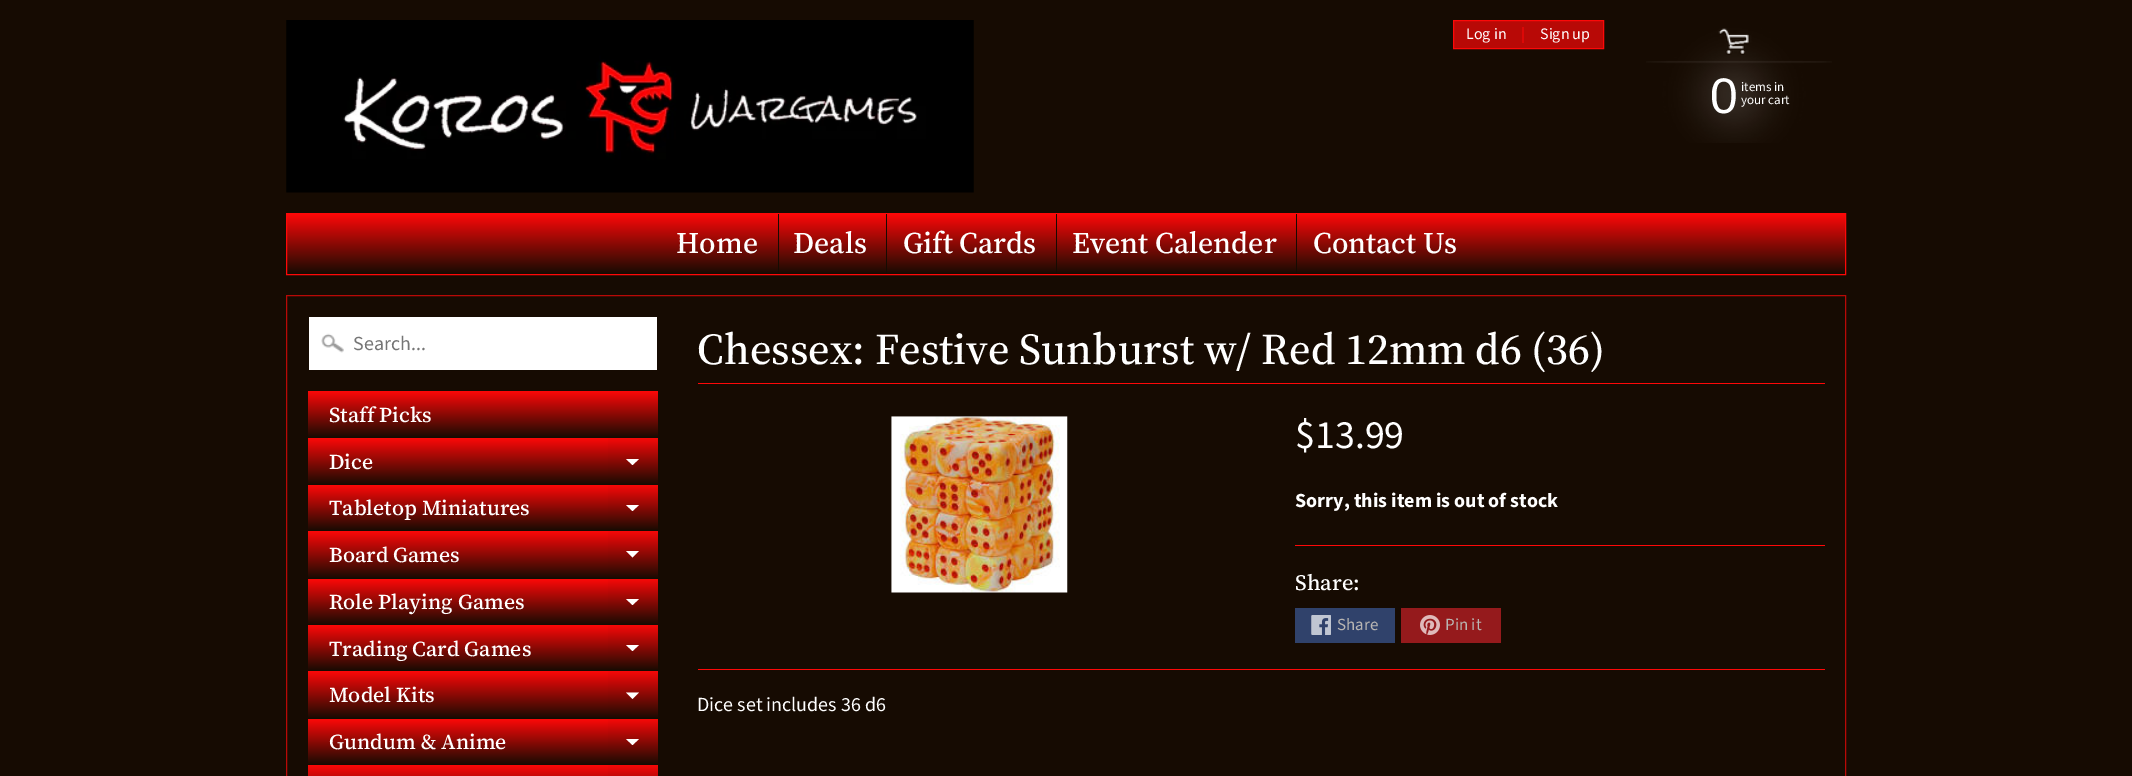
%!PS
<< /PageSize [2132 776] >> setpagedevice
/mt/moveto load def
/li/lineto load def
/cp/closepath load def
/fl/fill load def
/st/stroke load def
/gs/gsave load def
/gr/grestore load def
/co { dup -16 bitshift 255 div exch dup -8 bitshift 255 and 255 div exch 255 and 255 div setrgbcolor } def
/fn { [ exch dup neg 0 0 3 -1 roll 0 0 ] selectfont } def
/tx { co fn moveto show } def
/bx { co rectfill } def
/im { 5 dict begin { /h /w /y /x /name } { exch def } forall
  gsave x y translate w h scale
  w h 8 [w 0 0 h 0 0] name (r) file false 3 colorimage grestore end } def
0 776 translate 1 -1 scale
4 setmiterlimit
0 0 2132 776 16#160B02 bx
(media/1.raw) 286 20 688 173 im
16#B80906 co
1453.5 20.5 mt 1603.5 20.5 li 1603.5 48.5 li 1453.5 48.5 li cp gs fl gr
16#FD0808 co
st
(media/2.raw) 1646 28 186 115 im
gs 287 214 mt 1845 214 li 1845 273 li 287 273 li cp clip newpath
<< /ShadingType 2 /ColorSpace /DeviceRGB /Coords [1066 214 1066 274] /Extend [true true] /Function << /FunctionType 2 /Domain [0 1] /C0 [.992 .031 .031] /C1 [.086 .043 .008] /N 1 >> >> shfill gr
286.5 213.5 1559 61 rectstroke
778 214 1 60 16#160B02 bx
886 214 1 60 16#160B02 bx
1056 214 1 60 16#160B02 bx
1296 214 1 60 16#160B02 bx
16#B80906 co
286.5 295.5 1559 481 rectstroke
309 317 348 53 16#FFFFFF bx
(media/3.raw) 321 333 23 20 im
gs 308 391 mt 658 391 li 658 437 li 308 437 li cp clip newpath
<< /ShadingType 2 /ColorSpace /DeviceRGB /Coords [483 391 483 438] /Extend [true true] /Function << /FunctionType 2 /Domain [0 1] /C0 [.992 .031 .031] /C1 [.086 .043 .008] /N 1 >> >> shfill gr
gs 308 438 mt 608 438 li 608 484 li 308 484 li cp clip newpath
<< /ShadingType 2 /ColorSpace /DeviceRGB /Coords [483 438 483 485] /Extend [true true] /Function << /FunctionType 2 /Domain [0 1] /C0 [.992 .031 .031] /C1 [.086 .043 .008] /N 1 >> >> shfill gr
gs 608 438 mt 658 438 li 658 484 li 608 484 li cp clip newpath
<< /ShadingType 2 /ColorSpace /DeviceRGB /Coords [483 438 483 485] /Extend [true true] /Function << /FunctionType 2 /Domain [0 1] /C0 [.973 .031 .031] /C1 [.086 .043 .008] /N 1 >> >> shfill gr
626 459 mt 639 459 li 632.5 465 li cp fl
gs 308 485 mt 608 485 li 608 531 li 308 531 li cp clip newpath
<< /ShadingType 2 /ColorSpace /DeviceRGB /Coords [483 485 483 531] /Extend [true true] /Function << /FunctionType 2 /Domain [0 1] /C0 [.992 .031 .031] /C1 [.086 .043 .008] /N 1 >> >> shfill gr
gs 608 485 mt 658 485 li 658 530 li 608 530 li cp clip newpath
<< /ShadingType 2 /ColorSpace /DeviceRGB /Coords [483 485 483 531] /Extend [true true] /Function << /FunctionType 2 /Domain [0 1] /C0 [.973 .031 .031] /C1 [.086 .043 .008] /N 1 >> >> shfill gr
626 505 mt 639 505 li 632.5 511 li cp fl
gs 308 531 mt 608 531 li 608 578 li 308 578 li cp clip newpath
<< /ShadingType 2 /ColorSpace /DeviceRGB /Coords [483 531 483 579] /Extend [true true] /Function << /FunctionType 2 /Domain [0 1] /C0 [.992 .031 .031] /C1 [.086 .043 .008] /N 1 >> >> shfill gr
gs 608 531 mt 658 531 li 658 578 li 608 578 li cp clip newpath
<< /ShadingType 2 /ColorSpace /DeviceRGB /Coords [483 531 483 579] /Extend [true true] /Function << /FunctionType 2 /Domain [0 1] /C0 [.973 .031 .031] /C1 [.086 .043 .008] /N 1 >> >> shfill gr
626 551 mt 639 551 li 632.5 557.5 li cp fl
gs 308 579 mt 608 579 li 608 625 li 308 625 li cp clip newpath
<< /ShadingType 2 /ColorSpace /DeviceRGB /Coords [483 579 483 625] /Extend [true true] /Function << /FunctionType 2 /Domain [0 1] /C0 [.992 .031 .031] /C1 [.086 .043 .008] /N 1 >> >> shfill gr
gs 608 579 mt 658 579 li 658 624 li 608 624 li cp clip newpath
<< /ShadingType 2 /ColorSpace /DeviceRGB /Coords [483 579 483 625] /Extend [true true] /Function << /FunctionType 2 /Domain [0 1] /C0 [.973 .031 .031] /C1 [.086 .043 .008] /N 1 >> >> shfill gr
626 599 mt 639 599 li 632.5 605 li cp fl
gs 308 625 mt 608 625 li 608 671 li 308 671 li cp clip newpath
<< /ShadingType 2 /ColorSpace /DeviceRGB /Coords [483 625 483 671] /Extend [true true] /Function << /FunctionType 2 /Domain [0 1] /C0 [.992 .031 .031] /C1 [.086 .043 .008] /N 1 >> >> shfill gr
gs 608 625 mt 658 625 li 658 670 li 608 670 li cp clip newpath
<< /ShadingType 2 /ColorSpace /DeviceRGB /Coords [483 625 483 671] /Extend [true true] /Function << /FunctionType 2 /Domain [0 1] /C0 [.973 .031 .031] /C1 [.086 .043 .008] /N 1 >> >> shfill gr
626 645 mt 639 645 li 632.5 651 li cp fl
gs 308 671 mt 608 671 li 608 718 li 308 718 li cp clip newpath
<< /ShadingType 2 /ColorSpace /DeviceRGB /Coords [483 671 483 719] /Extend [true true] /Function << /FunctionType 2 /Domain [0 1] /C0 [.992 .031 .031] /C1 [.086 .043 .008] /N 1 >> >> shfill gr
gs 608 671 mt 658 671 li 658 718 li 608 718 li cp clip newpath
<< /ShadingType 2 /ColorSpace /DeviceRGB /Coords [483 671 483 719] /Extend [true true] /Function << /FunctionType 2 /Domain [0 1] /C0 [.973 .031 .031] /C1 [.086 .043 .008] /N 1 >> >> shfill gr
626 692.5 mt 639 692.5 li 632.5 699 li cp fl
gs 308 719 mt 608 719 li 608 765 li 308 765 li cp clip newpath
<< /ShadingType 2 /ColorSpace /DeviceRGB /Coords [483 719 483 765] /Extend [true true] /Function << /FunctionType 2 /Domain [0 1] /C0 [.992 .031 .031] /C1 [.086 .043 .008] /N 1 >> >> shfill gr
gs 608 719 mt 658 719 li 658 764 li 608 764 li cp clip newpath
<< /ShadingType 2 /ColorSpace /DeviceRGB /Coords [483 719 483 765] /Extend [true true] /Function << /FunctionType 2 /Domain [0 1] /C0 [.973 .031 .031] /C1 [.086 .043 .008] /N 1 >> >> shfill gr
626 739 mt 639 739 li 632.5 745 li cp fl
gs 308 765 mt 608 765 li 608 776 li 308 776 li cp clip newpath
<< /ShadingType 2 /ColorSpace /DeviceRGB /Coords [483 765 483 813] /Extend [true true] /Function << /FunctionType 2 /Domain [0 1] /C0 [.992 .031 .031] /C1 [.086 .043 .008] /N 1 >> >> shfill gr
gs 608 765 mt 658 765 li 658 776 li 608 776 li cp clip newpath
<< /ShadingType 2 /ColorSpace /DeviceRGB /Coords [483 765 483 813] /Extend [true true] /Function << /FunctionType 2 /Domain [0 1] /C0 [.973 .031 .031] /C1 [.086 .043 .008] /N 1 >> >> shfill gr
698 383 1127 1 16#FD0808 bx
(media/4.raw) 891 416 177 177 im
1295 545 530 1 16#FD0808 bx
1295 608 100 35 16#30426B bx
(media/5.raw) 1311 615 20 20 im
1401 608 100 35 16#951A1C bx
(media/6.raw) 1420 615 20 20 im
698 669 1127 1 16#FD0808 bx
(Log in) 1466 39 /SourceSansPro-Regular 16 16#FFFFFF tx
(|) 1521 39 /SourceSansPro-Regular 16 16#FD0808 tx
(Sign up) 1540 39 /SourceSansPro-Regular 16 16#FFFFFF tx
(0) 1710 113 /LiberationSans-Regular 50 16#FFFFFF tx
(items in) 1741 91 /SourceSansPro-Regular 13 16#FFFFFF tx
(your cart) 1741 104 /SourceSansPro-Regular 13 16#FFFFFF tx
(Home) 676 253 /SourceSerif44-Medium 30 16#FFFFFF tx
(Deals) 793 253 /SourceSerif44-Medium 30 16#FFFFFF tx
(Gift Cards) 903 253 /SourceSerif44-Medium 30 16#FFFFFF tx
(Event Calender) 1072 253 /SourceSerif44-Medium 30 16#FFFFFF tx
(Contact Us) 1313 253 /SourceSerif44-Medium 30 16#FFFFFF tx
(Search...) 353 350 /SourceSansPro-Regular 20 16#757575 tx
(Staff Picks) 329 422 /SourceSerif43-Medium 21.25 16#FFFFFF tx
(Dice) 329 469 /SourceSerif43-Medium 21.25 16#FFFFFF tx
(Tabletop Miniatures) 329 515 /SourceSerif43-Medium 21.25 16#FFFFFF tx
(Board Games) 329 562 /SourceSerif43-Medium 21.25 16#FFFFFF tx
(Role Playing Games) 329 609 /SourceSerif43-Medium 21.25 16#FFFFFF tx
(Trading Card Games) 329 656 /SourceSerif43-Medium 21.25 16#FFFFFF tx
(Model Kits) 329 702 /SourceSerif43-Medium 21.25 16#FFFFFF tx
(Gundum & Anime) 329 749 /SourceSerif43-Medium 21.25 16#FFFFFF tx
(Chessex: Festive Sunburst w/ Red 12mm d6 \(36\)) 697 364 /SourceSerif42-Medium 44 16#FFFFFF tx
($13.99) 1295 448 /SourceSansPro-Regular 40 16#FFFFFF tx
(Sorry, this item is out of stock) 1295 507 /SourceSansPro-Bold 20 16#FFFFFF tx
(Share:) 1295 590 /SourceSerif4-Medium 22 16#FFFFFF tx
(Share) 1337 630 /SourceSansPro-Regular 17 16#B9B6B3 tx
(Pin it) 1445 630 /SourceSansPro-Regular 17 16#B9B6B3 tx
(Dice set includes 36 d6) 697 711 /SourceSansPro-Regular 20 16#FFFFFF tx
showpage
